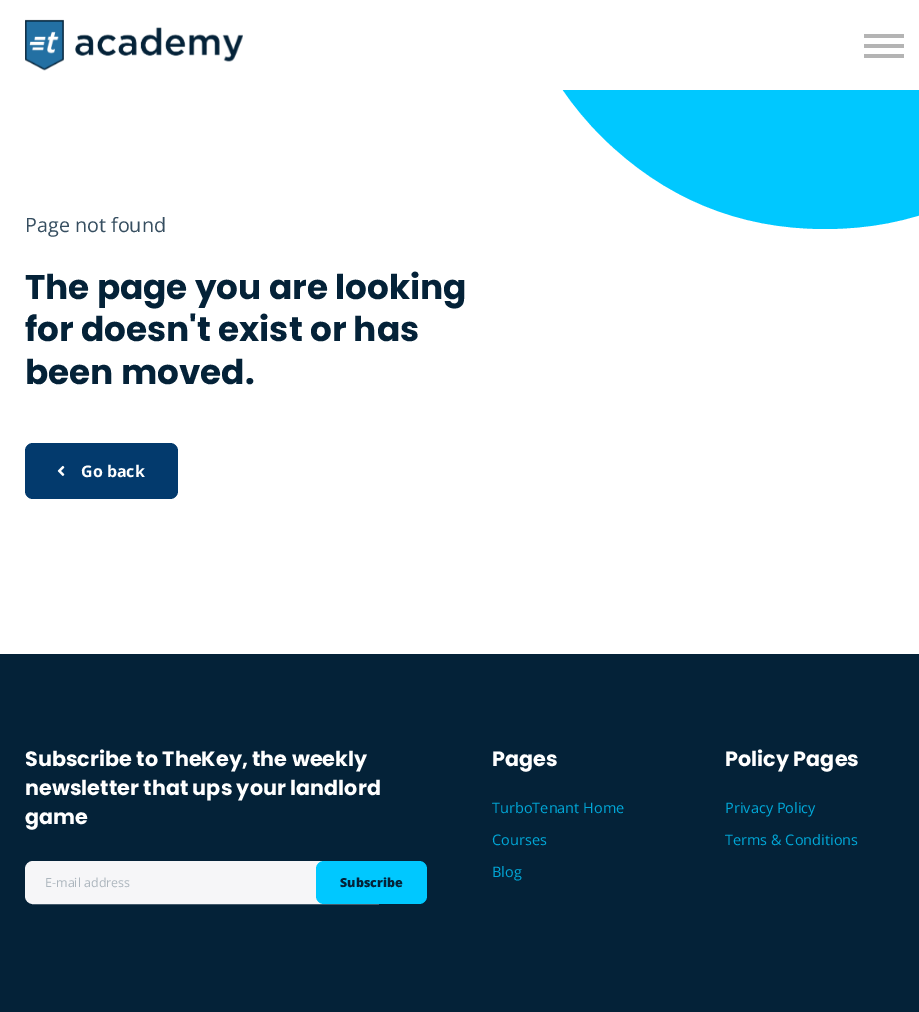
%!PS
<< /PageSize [919 1012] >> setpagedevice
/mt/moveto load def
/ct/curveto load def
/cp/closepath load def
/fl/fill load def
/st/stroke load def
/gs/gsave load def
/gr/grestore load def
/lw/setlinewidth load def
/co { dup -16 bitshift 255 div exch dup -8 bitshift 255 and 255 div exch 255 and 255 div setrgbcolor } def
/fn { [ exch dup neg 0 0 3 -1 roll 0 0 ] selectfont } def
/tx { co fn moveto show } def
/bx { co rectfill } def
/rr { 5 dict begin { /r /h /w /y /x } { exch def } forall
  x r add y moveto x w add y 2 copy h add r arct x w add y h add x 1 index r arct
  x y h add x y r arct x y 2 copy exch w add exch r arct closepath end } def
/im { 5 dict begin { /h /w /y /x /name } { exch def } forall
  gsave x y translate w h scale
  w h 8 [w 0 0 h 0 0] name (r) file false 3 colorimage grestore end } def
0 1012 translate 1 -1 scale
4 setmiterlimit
0 0 919 1012 16#FFFFFF bx
(media/1.raw) 25 19 218 52 im
864 54 40 4 16#B4B4B4 bx
864 34 40 4 16#B4B4B4 bx
864 44 40 4 16#B4B4B4 bx
gs
0 90 919 564 rectclip
16#00C8FF co
602 -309 mt 664 -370 738 -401 825 -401 ct 912 -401 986 -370 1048 -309 ct 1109 -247 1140 -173 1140 -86 ct 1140 1 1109 76 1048 137 ct 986 198 912 229 825 229 ct 738 229 664 198 602 137 ct 541 76 510 1 510 -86 ct 510 -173 541 -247 602 -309 ct cp fl
gr
16#033A6D co
25 443 153 56 8 rr fl
(media/2.raw) 57 465 8 11 im
0 654 919 358 16#042238 bx
16#F6F6F8 co
26 862 359 41 7 rr gs fl gr
2 lw
st
16#00C8FF co
316 861 111 43 8 rr fl
(Page not found) 25 232 /OpenSans-Regular 19.75 16#364E60 tx
(The page you are looking) 25 299 /Poppins-Bold 34.25 16#042238 tx
(for doesn't exist or has) 25 341 /Poppins-Bold 34.25 16#042238 tx
(been moved.) 25 384 /Poppins-Bold 34.25 16#042238 tx
(Go back) 81 477 /OpenSans-Bold 16 16#FFFFFF tx
(Subscribe to TheKey, the weekly) 25 766 /Poppins-Bold 20.75 16#FFFFFF tx
(newsletter that ups your landlord) 25 795 /Poppins-Bold 20.75 16#FFFFFF tx
(game) 25 824 /Poppins-Bold 20.75 16#FFFFFF tx
(E-mail address) 45 887 /OpenSans-Regular 12.5 16#ADB6BE tx
(Subscribe) 340 887 /OpenSans-ExtraBold 12.5 16#042238 tx
(Pages) 492 766 /Poppins-Bold 20.75 16#FFFFFF tx
(TurboTenant Home) 492 813 /OpenSans-Regular 14.5 16#01A7D7 tx
(Courses) 492 845 /OpenSans-Regular 14.5 16#01A7D7 tx
(Blog) 492 877 /OpenSans-Regular 14.5 16#01A7D7 tx
(Policy Pages) 725 766 /Poppins-Bold 20.75 16#FFFFFF tx
(Privacy Policy) 725 813 /OpenSans-Regular 14.5 16#01A7D7 tx
(Terms & Conditions) 725 845 /OpenSans-Regular 14.5 16#01A7D7 tx
showpage
